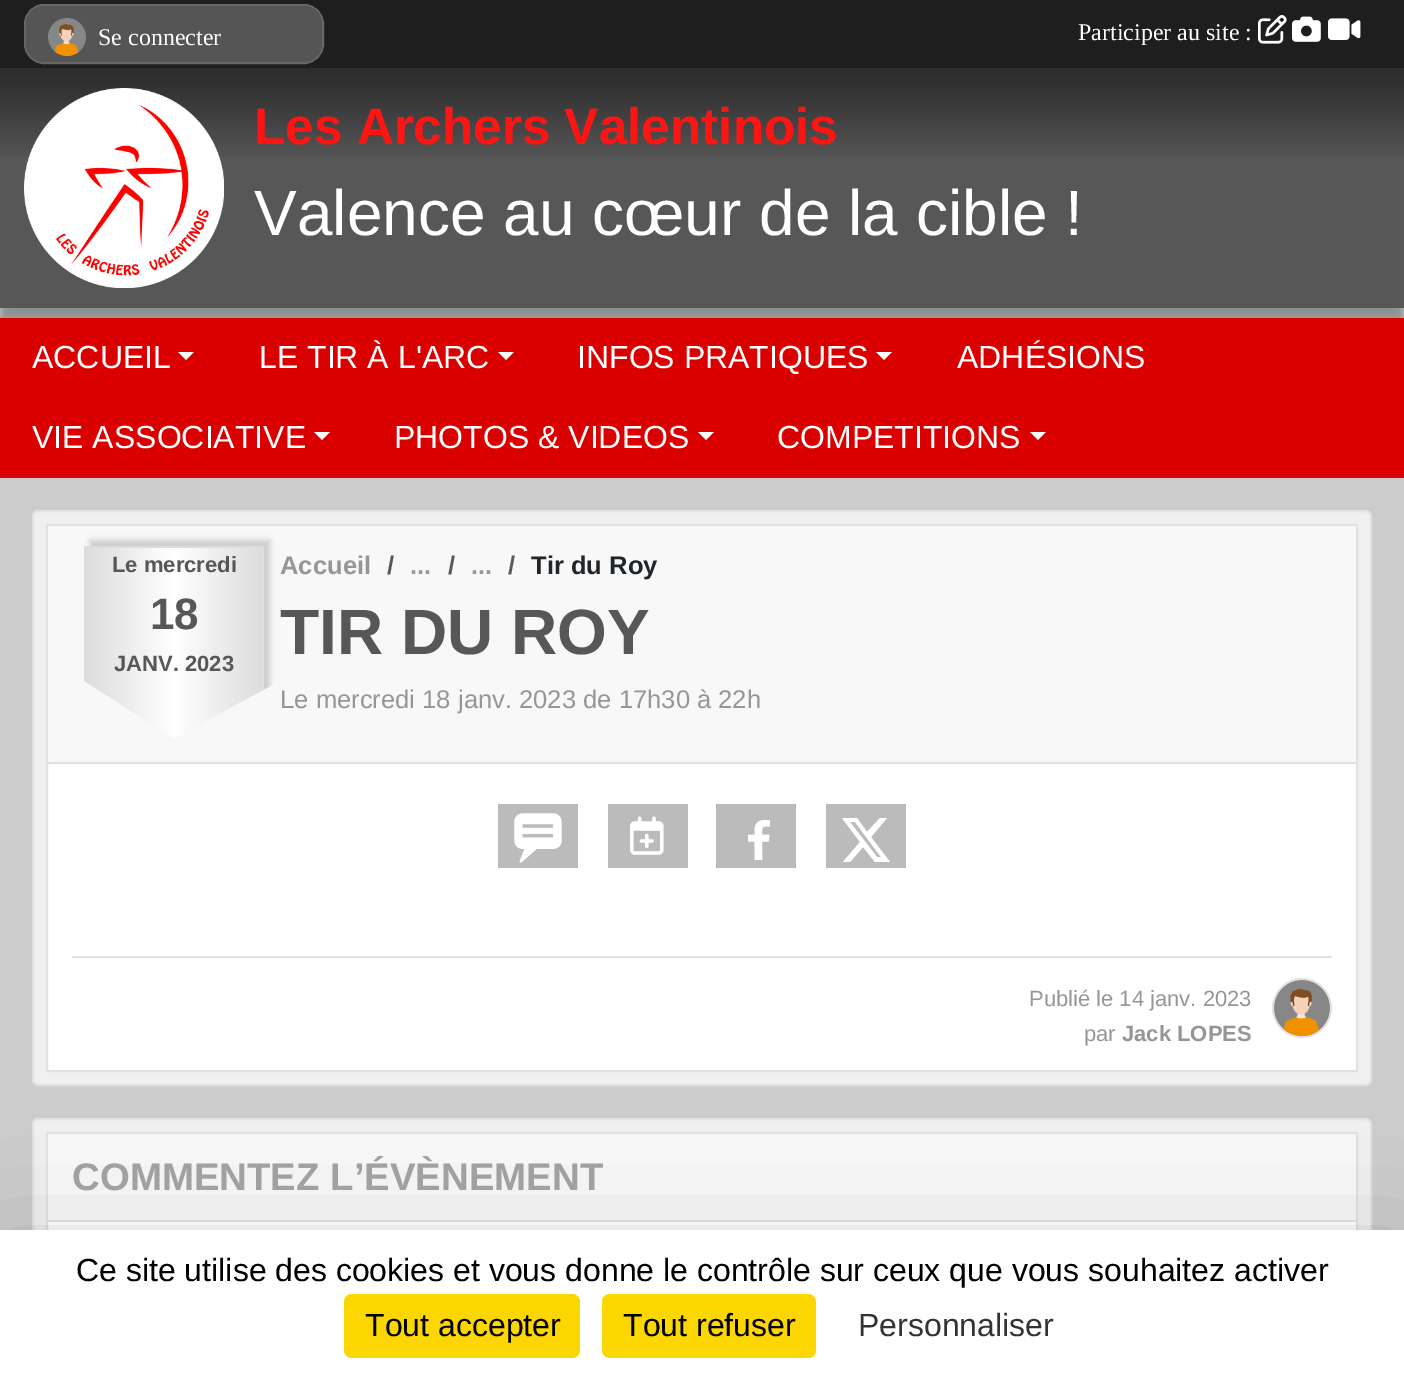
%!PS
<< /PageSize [1404 1377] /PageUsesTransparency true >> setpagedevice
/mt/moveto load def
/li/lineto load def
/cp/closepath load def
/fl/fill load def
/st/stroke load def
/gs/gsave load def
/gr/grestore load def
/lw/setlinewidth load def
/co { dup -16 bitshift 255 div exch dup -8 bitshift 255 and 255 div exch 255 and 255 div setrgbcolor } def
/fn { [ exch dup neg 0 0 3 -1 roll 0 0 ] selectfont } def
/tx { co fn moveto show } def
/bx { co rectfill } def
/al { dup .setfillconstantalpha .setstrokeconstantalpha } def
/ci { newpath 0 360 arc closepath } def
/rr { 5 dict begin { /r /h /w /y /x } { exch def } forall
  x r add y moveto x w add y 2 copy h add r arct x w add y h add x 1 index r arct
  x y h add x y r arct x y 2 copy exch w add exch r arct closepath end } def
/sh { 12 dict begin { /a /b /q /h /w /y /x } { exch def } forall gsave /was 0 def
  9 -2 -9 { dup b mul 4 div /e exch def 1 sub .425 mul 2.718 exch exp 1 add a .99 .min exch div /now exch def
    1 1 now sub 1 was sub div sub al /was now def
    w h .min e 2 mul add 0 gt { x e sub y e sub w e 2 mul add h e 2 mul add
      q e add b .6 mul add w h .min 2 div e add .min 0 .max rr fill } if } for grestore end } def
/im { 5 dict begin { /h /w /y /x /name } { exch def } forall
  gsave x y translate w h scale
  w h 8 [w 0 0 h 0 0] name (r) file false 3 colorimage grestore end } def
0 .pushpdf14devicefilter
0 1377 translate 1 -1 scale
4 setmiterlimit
0 0 1404 1377 16#CCCCCC bx
16#505050 co
0 82 1404 240 0 5 .5 sh
0 0 1404 68 16#1E1E1E bx
16#666666 co
2 lw
25 5 298 58 19 rr st
16#555555 co
26 6 296 56 18 rr fl
(media/1.raw) 48 18 38 38 im
(media/2.raw) 1258 15 29 29 im
(media/3.raw) 1292 16 29 26 im
(media/4.raw) 1328 18 33 22 im
0 68 1404 240 16#575757 bx
(media/5.raw) 0 68 1404 89 im
(media/6.raw) 24 88 200 200 im
0 318 1404 160 16#DB0000 bx
16#FFFFFF co
178 352 mt 194 352 li 186 360 li cp fl
498 352 mt 514 352 li 506 360 li cp fl
876 352 mt 892 352 li 884 360 li cp fl
314 432 mt 330 432 li 322 440 li cp fl
698 432 mt 714 432 li 706 440 li cp fl
1030 432 mt 1046 432 li 1038 440 li cp fl
16#F0F0F0 co
33 511 1338 574 5 rr gs fl gr
16#E1E1E1 co
st
48 764 1308 306 16#FFFFFF bx
16#E1E1E1 co
47 525 1310 546 rectstroke
48 526 1308 236 16#F8F8F8 bx
48 762 1308 2 16#E1E1E1 bx
16#CCCCCC co
90 540 180 194 0 3 1 sh
gs 84 546 mt 86 546 li 86 683 li 84 683 li cp clip newpath
<< /ShadingType 2 /ColorSpace /DeviceRGB /Coords [-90 644 86 644] /Extend [true true] /Function << /FunctionType 3 /Domain [0 1] /Functions [<< /FunctionType 2 /Domain [0 1] /C0 [.867 .867 .867] /C1 [1 1 1] /N 1 >> << /FunctionType 2 /Domain [0 1] /C0 [1 1 1] /C1 [.867 .867 .867] /N 1 >>] /Bounds [.5] /Encode [0 1 0 1] >> >> shfill gr
gs 86 548 mt 262 548 li 262 739 li 86 739 li cp clip newpath
<< /ShadingType 2 /ColorSpace /DeviceRGB /Coords [86 644 262 644] /Extend [true true] /Function << /FunctionType 3 /Domain [0 1] /Functions [<< /FunctionType 2 /Domain [0 1] /C0 [.867 .867 .867] /C1 [1 1 1] /N 1 >> << /FunctionType 2 /Domain [0 1] /C0 [1 1 1] /C1 [.867 .867 .867] /N 1 >>] /Bounds [.5] /Encode [0 1 0 1] >> >> shfill gr
gs 262 546 mt 264 546 li 264 691 li 262 691 li cp clip newpath
<< /ShadingType 2 /ColorSpace /DeviceRGB /Coords [262 644 438 644] /Extend [true true] /Function << /FunctionType 3 /Domain [0 1] /Functions [<< /FunctionType 2 /Domain [0 1] /C0 [.867 .867 .867] /C1 [1 1 1] /N 1 >> << /FunctionType 2 /Domain [0 1] /C0 [1 1 1] /C1 [.867 .867 .867] /N 1 >>] /Bounds [.5] /Encode [0 1 0 1] >> >> shfill gr
84 546 180 2 16#DDDDDD bx
16#F8F8F8 co
82 740 mt 82 680 li 176 740 li cp fl
282 680 mt 282 740 li 172 740 li cp fl
498 804 80 64 16#BBBBBB bx
(media/7.raw) 514 813 48 50 im
608 804 80 64 16#BBBBBB bx
(media/8.raw) 630 816 34 39 im
716 804 80 64 16#BBBBBB bx
(media/9.raw) 748 820 22 40 im
826 804 80 64 16#BBBBBB bx
16#FFFFFF co
880 818 mt 887 818 li 871 837 li 890 862 li 875 862 li 863 847 li 850 862 li 843 862 li 860 842 li 842 818 li 857 818 li 867 832 li cp 877 857 mt 881 857 li 855 822 li 850 822 li cp fl
72 956 1260 2 16#E1E1E1 bx
1302 1008 29 ci st
(media/10.raw) 1274 980 56 56 im
16#F0F0F0 co
33 1119 1338 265 5 rr gs fl gr
16#E1E1E1 co
st
48 1222 1308 8 16#FFFFFF bx
16#E1E1E1 co
47 1133 1310 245 rectstroke
48 1134 1308 86 16#F8F8F8 bx
48 1220 1308 2 16#E1E1E1 bx
16#000000 co
0 1270 1404 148 0 60 .25 sh
0 1230 1404 147 16#FFFFFF bx
16#FBD600 co
344 1294 236 64 8 rr fl
602 1294 214 64 8 rr fl
(Se connecter) 98 45 /LiberationSerif-Regular 24 16#FFFFFF tx
(Participer au site :) 1078 40 /LiberationSerif-Regular 24 16#FFFFFF tx
(Les Archers Valentinois) 254 144 /LiberationSans-Bold 51.25 16#FF1414 tx
(Valence au cœur de la cible !) 254 235 /LiberationSans-Regular 64 16#FFFFFF tx
(ACCUEIL) 32 368 /LiberationSans-Regular 32 16#FFFFFF tx
(LE TIR À L'ARC) 259 368 /LiberationSans-Regular 32 16#FFFFFF tx
(INFOS PRATIQUES) 577 368 /LiberationSans-Regular 32 16#FFFFFF tx
(ADHÉSIONS) 957 368 /LiberationSans-Regular 32 16#FFFFFF tx
(VIE ASSOCIATIVE) 32 448 /LiberationSans-Regular 32 16#FFFFFF tx
(PHOTOS & VIDEOS) 394 448 /LiberationSans-Regular 32 16#FFFFFF tx
(COMPETITIONS) 777 448 /LiberationSans-Regular 32 16#FFFFFF tx
(Le mercredi) 112 572 /LiberationSans-Bold 22 16#575757 tx
(18) 150 629 /LiberationSans-Bold 44 16#575757 tx
(JANV. 2023) 114 671 /LiberationSans-Bold 22 16#575757 tx
(Accueil) 280 574 /LiberationSans-Bold 25.6 16#969696 tx
(/) 387 574 /LiberationSans-Bold 25.6 16#575A5D tx
(...) 410 574 /LiberationSans-Bold 25.6 16#969696 tx
(/) 448 574 /LiberationSans-Bold 25.6 16#575A5D tx
(...) 471 574 /LiberationSans-Bold 25.6 16#969696 tx
(/) 508 574 /LiberationSans-Bold 25.6 16#575A5D tx
(Tir du Roy) 531 574 /LiberationSans-Bold 25.6 16#212529 tx
(TIR DU ROY) 280 654 /LiberationSans-Bold 64 16#575757 tx
(Le mercredi 18 janv. 2023 de 17h30 à 22h) 280 708 /LiberationSans-Regular 25.6 16#969696 tx
(Publié le 14 janv. 2023) 1029 1006 /LiberationSans-Regular 22 16#969696 tx
(par) 1084 1041 /LiberationSans-Regular 22 16#969696 tx
(Jack LOPES) 1122 1041 /LiberationSans-Bold 22 16#969696 tx
(COMMENTEZ L’ÉVÈNEMENT) 72 1190 /LiberationSans-Bold 38.4 16#A1A1A1 tx
(Ce site utilise des cookies et vous donne le contrôle sur ceux que vous souhaitez activer) 76 1281 /LiberationSans-Regular 32 16#000000 tx
(Tout accepter) 365 1336 /LiberationSans-Regular 32 16#000000 tx
(Tout refuser) 623 1336 /LiberationSans-Regular 32 16#000000 tx
(Personnaliser) 858 1336 /LiberationSans-Regular 32 16#333333 tx
.poppdf14devicefilter showpage
